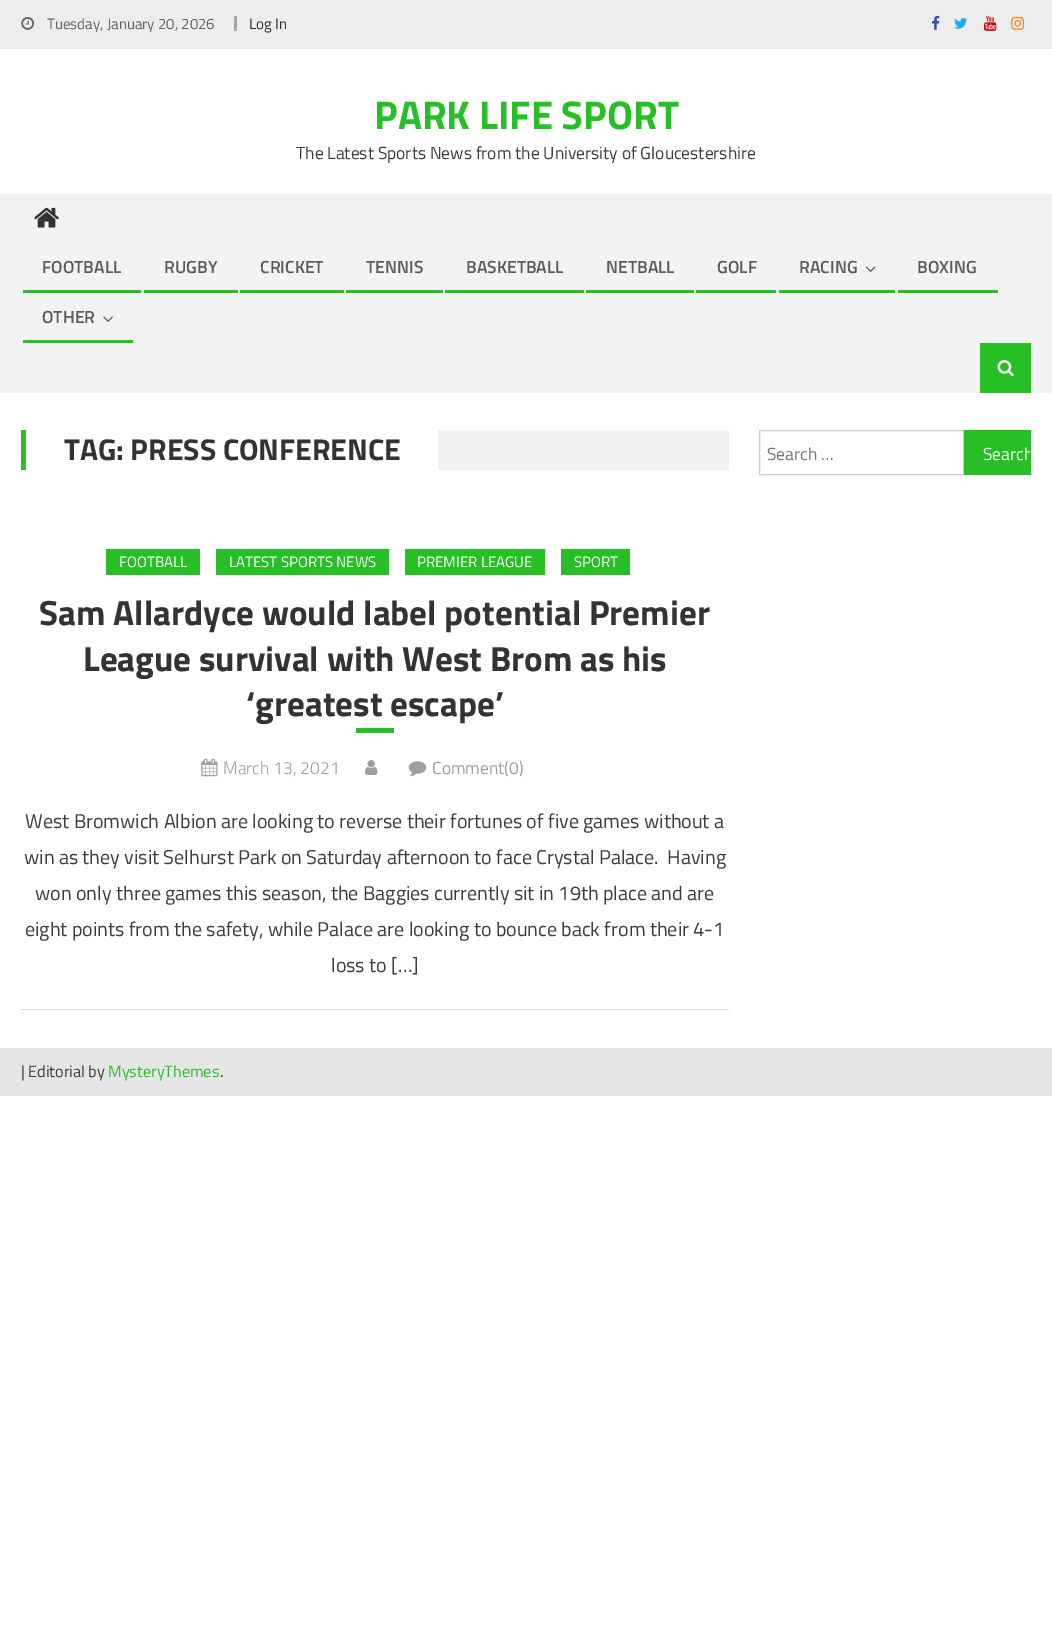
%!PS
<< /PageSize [1052 1637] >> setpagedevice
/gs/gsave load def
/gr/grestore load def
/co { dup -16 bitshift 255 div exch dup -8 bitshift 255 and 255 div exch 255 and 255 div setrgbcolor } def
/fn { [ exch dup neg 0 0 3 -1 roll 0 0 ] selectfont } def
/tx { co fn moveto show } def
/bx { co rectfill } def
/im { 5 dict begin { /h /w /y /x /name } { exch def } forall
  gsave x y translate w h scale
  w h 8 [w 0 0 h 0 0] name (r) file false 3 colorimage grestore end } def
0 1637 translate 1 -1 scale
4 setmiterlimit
0 0 1052 1637 16#FFFFFF bx
0 0 1052 49 16#EDEDED bx
(media/1.raw) 21 17 14 13 im
234 16 3 15 16#A6A6A6 bx
(media/2.raw) 932 15 8 15 im
(media/3.raw) 954 18 14 11 im
(media/4.raw) 984 15 13 16 im
(media/5.raw) 1011 17 14 13 im
0 194 1052 199 16#F3F3F3 bx
(media/6.raw) 34 207 25 21 im
23 290 118 3 16#28BF26 bx
144 290 94 3 16#28BF26 bx
240 290 104 3 16#28BF26 bx
346 290 97 3 16#28BF26 bx
445 290 139 3 16#28BF26 bx
586 290 108 3 16#28BF26 bx
696 290 80 3 16#28BF26 bx
779 290 116 3 16#28BF26 bx
(media/7.raw) 865 266 11 6 im
898 290 100 3 16#28BF26 bx
23 340 110 3 16#28BF26 bx
(media/8.raw) 103 316 10 6 im
980 343 51 50 16#28BF26 bx
(media/9.raw) 997 360 17 17 im
438 430 291 40 16#F1F1F1 bx
21 430 5 40 16#28BF26 bx
21 1009 708 1 16#DDDDDD bx
106 549 94 26 16#28BF26 bx
216 549 173 26 16#28BF26 bx
405 549 140 26 16#28BF26 bx
561 549 69 26 16#28BF26 bx
356 728 38 5 16#28BF26 bx
(media/10.raw) 201 758 17 19 im
(media/11.raw) 365 760 13 15 im
(media/12.raw) 408 761 19 16 im
16#CCCCCC co
759.5 430.5 204 44 rectstroke
964 430 67 45 16#28BF26 bx
0 1048 1052 48 16#E6E6E6 bx
(Tuesday, January 20, 2026) 47 29 /TitilliumWeb-Regular 15 16#666363 tx
(Log In) 249 29 /TitilliumWeb-Regular 15 16#333333 tx
(PARK LIFE SPORT) 374 129 /TitilliumWeb-Bold 40 16#28BF26 tx
(The Latest Sports News from the University of Gloucestershire) 296 159 /TitilliumWeb-Regular 17.5 16#3D3D3D tx
(FOOTBALL) 42 273 /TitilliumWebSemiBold-SemiBold 17.5 16#5D5C5C tx
(RUGBY) 164 273 /TitilliumWebSemiBold-SemiBold 17.5 16#5D5C5C tx
(CRICKET) 260 273 /TitilliumWebSemiBold-SemiBold 17.5 16#5D5C5C tx
(TENNIS) 366 273 /TitilliumWebSemiBold-SemiBold 17.5 16#5D5C5C tx
(BASKETBALL) 466 273 /TitilliumWebSemiBold-SemiBold 17.5 16#5D5C5C tx
(NETBALL) 606 273 /TitilliumWebSemiBold-SemiBold 17.5 16#5D5C5C tx
(GOLF) 717 273 /TitilliumWebSemiBold-SemiBold 17.5 16#5D5C5C tx
(RACING) 799 273 /TitilliumWebSemiBold-SemiBold 17.5 16#5D5C5C tx
(BOXING) 917 273 /TitilliumWebSemiBold-SemiBold 17.5 16#5D5C5C tx
(OTHER) 42 323 /TitilliumWebSemiBold-SemiBold 17.5 16#5D5C5C tx
(TAG: PRESS CONFERENCE) 64 460 /TitilliumWeb-Bold 30 16#333333 tx
(FOOTBALL) 119 567 /TitilliumWeb-Regular 15 16#FFFFFF tx
(LATEST SPORTS NEWS) 229 567 /TitilliumWeb-Regular 15 16#FFFFFF tx
(PREMIER LEAGUE) 417 567 /TitilliumWeb-Regular 15 16#FFFFFF tx
(SPORT) 574 567 /TitilliumWeb-Regular 15 16#FFFFFF tx
(Sam Allardyce would label potential Premier) 39 625 /TitilliumWeb-Bold 35 16#333333 tx
(League survival with West Brom as his) 83 671 /TitilliumWeb-Bold 35 16#333333 tx
(‘greatest escape’) 246 716 /TitilliumWeb-Bold 35 16#333333 tx
(March 13, 2021) 223 774 /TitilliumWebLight-Light 17.5 16#9F9F9F tx
(Comment\(0\)) 432 774 /TitilliumWeb-Regular 17.5 16#9F9F9F tx
(West Bromwich Albion are looking to reverse their fortunes of five games without a) 25 828 /TitilliumWeb-Regular 20 16#3D3D3D tx
(win as they visit Selhurst Park on Saturday afternoon to face Crystal Palace.  Having) 24 864 /TitilliumWeb-Regular 20 16#3D3D3D tx
(won only three games this season, the Baggies currently sit in 19th place and are) 35 900 /TitilliumWeb-Regular 20 16#3D3D3D tx
(eight points from the safety, while Palace are looking to bounce back from their 4-1) 25 936 /TitilliumWeb-Regular 20 16#3D3D3D tx
(loss to […]) 331 972 /TitilliumWeb-Regular 20 16#3D3D3D tx
(Search …) 767 460 /TitilliumWeb-Regular 17.5 16#757575 tx
gs
965 431 65 43 rectclip
(Search) 983 460 /TitilliumWeb-Regular 17.5 16#FFFFFF tx
gr
(| Editorial by) 21 1077 /TitilliumWeb-Regular 16.25 16#3D3D3D tx
(MysteryThemes) 108 1077 /TitilliumWeb-Regular 16.25 16#28BF26 tx
(.) 220 1077 /TitilliumWeb-Regular 16.25 16#3D3D3D tx
showpage
